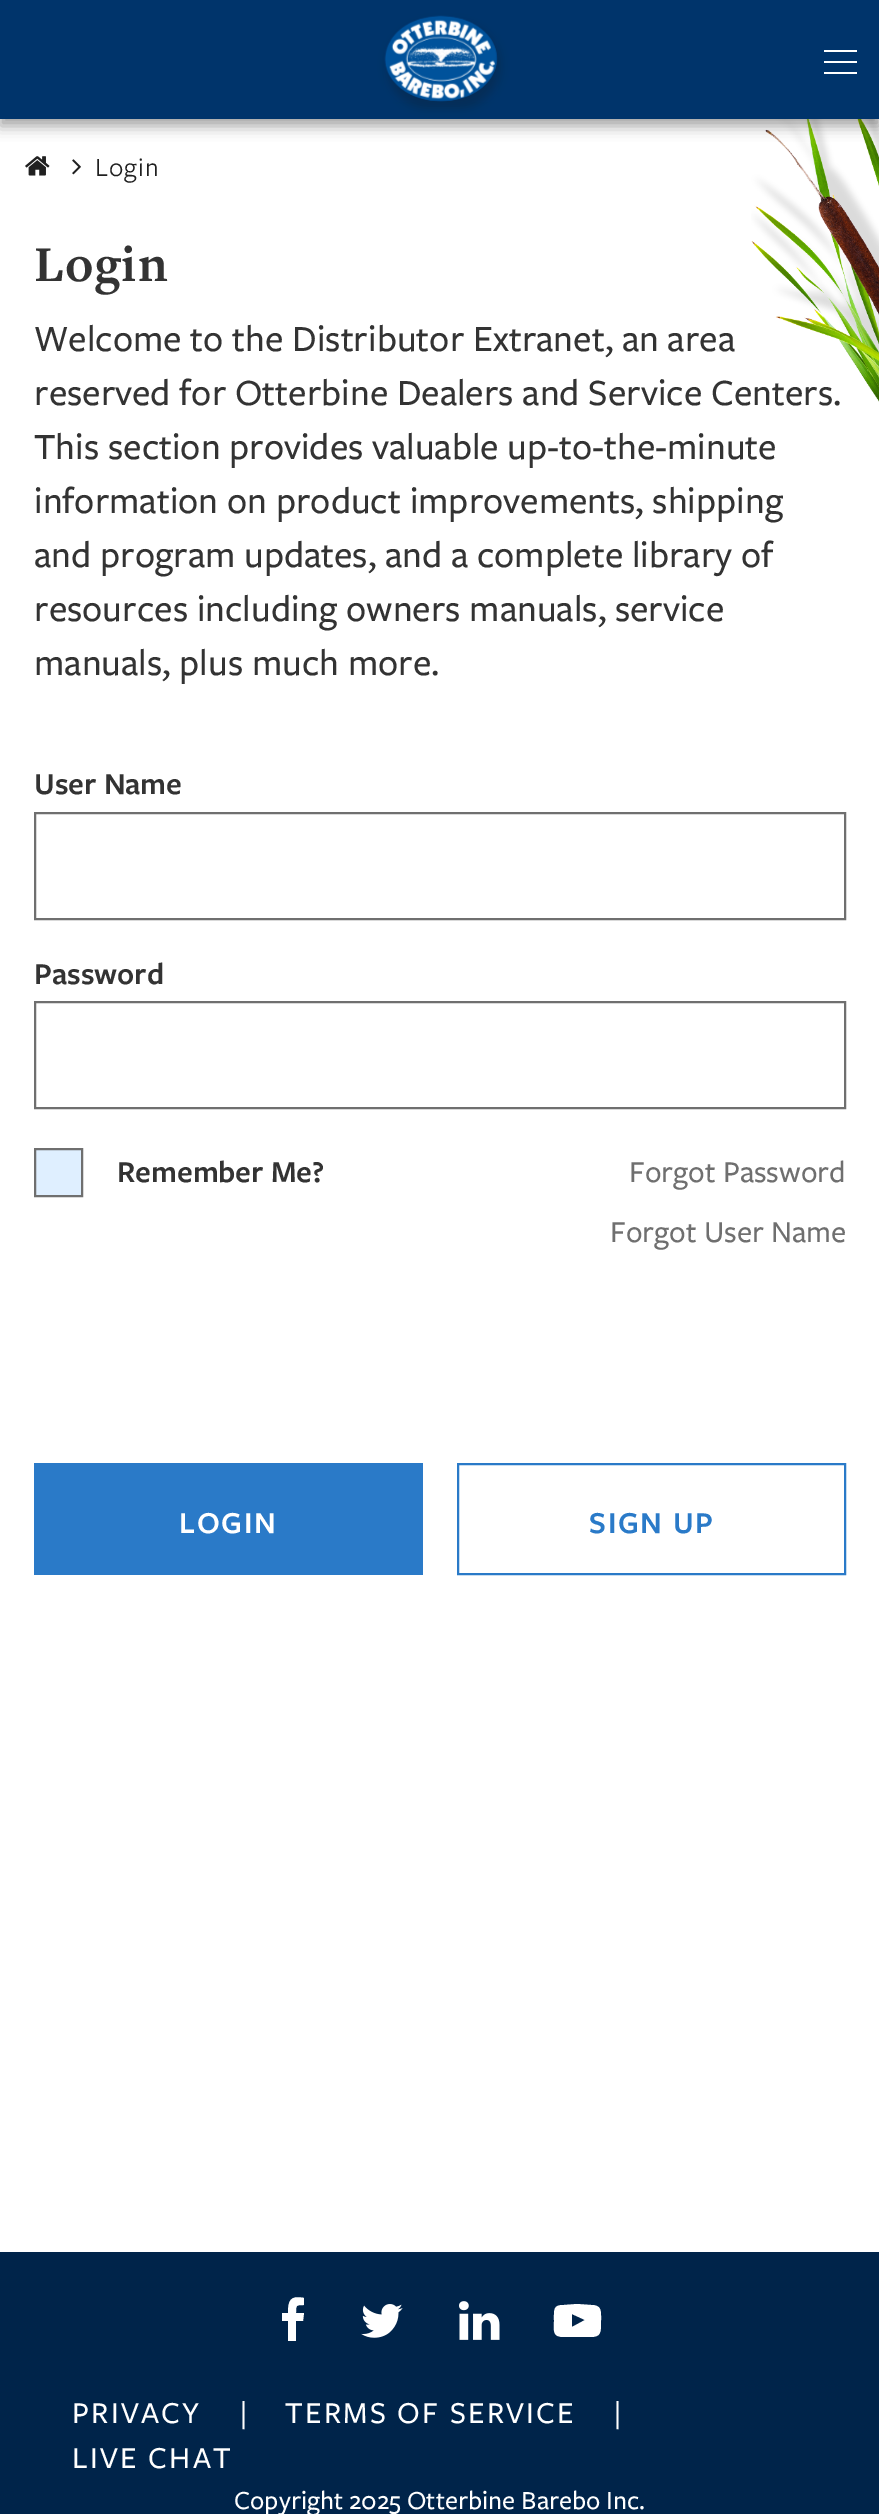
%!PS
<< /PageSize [879 2514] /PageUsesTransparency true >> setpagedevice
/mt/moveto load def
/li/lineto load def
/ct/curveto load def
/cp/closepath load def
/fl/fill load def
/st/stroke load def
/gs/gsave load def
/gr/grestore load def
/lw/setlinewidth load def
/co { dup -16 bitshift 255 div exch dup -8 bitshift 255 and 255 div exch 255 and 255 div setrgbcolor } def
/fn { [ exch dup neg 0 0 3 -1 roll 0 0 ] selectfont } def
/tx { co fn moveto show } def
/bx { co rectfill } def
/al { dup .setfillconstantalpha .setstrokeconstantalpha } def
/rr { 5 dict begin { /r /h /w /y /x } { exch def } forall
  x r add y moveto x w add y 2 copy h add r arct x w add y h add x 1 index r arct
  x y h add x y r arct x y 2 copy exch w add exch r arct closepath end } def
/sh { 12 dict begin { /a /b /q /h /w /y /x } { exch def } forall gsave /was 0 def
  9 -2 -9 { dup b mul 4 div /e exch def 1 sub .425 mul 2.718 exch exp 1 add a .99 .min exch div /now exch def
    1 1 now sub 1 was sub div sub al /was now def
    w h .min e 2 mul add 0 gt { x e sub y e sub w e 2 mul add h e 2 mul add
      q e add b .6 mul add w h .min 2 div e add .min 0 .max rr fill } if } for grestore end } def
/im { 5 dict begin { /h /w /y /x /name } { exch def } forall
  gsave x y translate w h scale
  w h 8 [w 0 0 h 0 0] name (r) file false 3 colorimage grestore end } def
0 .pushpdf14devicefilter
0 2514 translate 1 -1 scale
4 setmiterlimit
0 0 879 2514 16#FFFFFF bx
(media/4.raw) 751 119 128 283 im
16#000000 co
0 7 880 119 0 7 .36 sh
0 0 879 119 16#00346B bx
gs
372 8 mt 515 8 li 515 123 li 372 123 li cp 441 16 mt 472 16 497 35 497 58.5 ct 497 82 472 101 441 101 ct 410 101 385 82 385 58.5 ct 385 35 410 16 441 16 ct cp eoclip newpath
16#052D57 co
387 23 113 85 42.5 4.5 1 sh
gr
(media/1.raw) 384 15 114 87 im
824 61 33 2 16#FFFFFF bx
824 50 33 2 16#FFFFFF bx
824 72 33 2 16#FFFFFF bx
(media/2.raw) 25 156 25 20 im
(media/3.raw) 72 159 9 16 im
16#6F6F6F co
2 lw
35 813 810 106 rectstroke
35 1002 810 106 rectstroke
16#DFEFFF co
35 1149 mt 82 1149 li 82 1196 li 35 1196 li cp gs fl gr
16#6F6F6F co
st
34 1463 389 112 16#2A7AC8 bx
458 1464 387 110 rectstroke
0 2252 879 262 16#00244A bx
16#FFFFFF co
304 2298 mt 304 2305 li 296 2305 296 2305 296 2313 ct 304 2313 li 303 2321 li 296 2321 li 296 2341 li 288 2341 li 288 2321 li 282 2321 li 282 2313 li 288 2313 li 288 2301 290 2295 304 2298 ct cp fl
(media/5.raw) 361 2304 42 34 im
(media/6.raw) 459 2301 41 39 im
572 2327 mt 585 2320 li 572 2314 li cp 577 2304 mt 591 2305 li 602 2305 601 2311 601 2321 ct 601 2333 601 2337 590 2337 ct 564 2337 li 552 2337 554 2331 554 2321 ct 554 2309 553 2305 564 2305 ct cp fl
/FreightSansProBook-Regular 27 fn
16#202020 co
95 176 mt 1 0 (Login) ashow
/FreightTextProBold-Bold 52 fn
16#333333 co
34 281 mt 1 0 (Login) ashow
(Welcome to the Distributor Extranet, an area) 34 351 /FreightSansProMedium-Medium 38.25 16#333333 tx
(reserved for Otterbine Dealers and Service Centers.) 34 405 /FreightSansProMedium-Medium 38.25 16#333333 tx
(This section provides valuable up-to-the-minute) 34 459 /FreightSansProMedium-Medium 38.25 16#333333 tx
(information on product improvements, shipping) 34 513 /FreightSansProMedium-Medium 38.25 16#333333 tx
(and program updates, and a complete library of) 34 567 /FreightSansProMedium-Medium 38.25 16#333333 tx
(resources including owners manuals, service) 34 621 /FreightSansProMedium-Medium 38.25 16#333333 tx
(manuals, plus much more.) 34 675 /FreightSansProMedium-Medium 38.25 16#333333 tx
(User Name) 34 794 /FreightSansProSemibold-SemiBold 31.5 16#333333 tx
(Password) 34 984 /FreightSansProSemibold-SemiBold 31.5 16#333333 tx
(Remember Me?) 117 1182 /FreightSansProSemibold-SemiBold 31.5 16#333333 tx
(Forgot Password) 629 1182 /FreightSansProMedium-Medium 31.5 16#6F6F6F tx
(Forgot User Name) 610 1242 /FreightSansProMedium-Medium 31.5 16#6F6F6F tx
/FreightSansProSemibold-SemiBold 31.5 fn
16#FFFFFF co
179 1533 mt 1.75 0 (LOGIN) ashow
16#2A7AC8 co
589 1533 mt 1.75 0 (SIGN UP) ashow
/FreightSansProMedium-Medium 31.5 fn
16#FFFFFF co
72 2423 mt 2.25 0 (PRIVACY) ashow
(|) 240 2423 /FreightSansProMedium-Medium 31.5 16#FFFFFF tx
285 2423 mt 2.25 0 (TERMS OF SERVICE) ashow
(|) 614 2423 /FreightSansProMedium-Medium 31.5 16#FFFFFF tx
72 2468 mt 2.25 0 (LIVE CHAT) ashow
(Copyright 2025 Otterbine Barebo Inc.) 234 2509 /FreightSansProMedium-Medium 27 16#FFFFFF tx
.poppdf14devicefilter showpage
